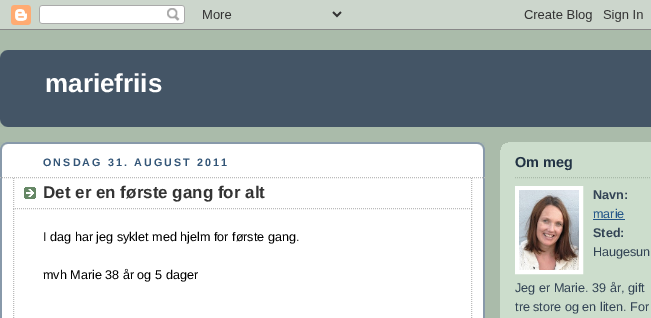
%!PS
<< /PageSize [651 318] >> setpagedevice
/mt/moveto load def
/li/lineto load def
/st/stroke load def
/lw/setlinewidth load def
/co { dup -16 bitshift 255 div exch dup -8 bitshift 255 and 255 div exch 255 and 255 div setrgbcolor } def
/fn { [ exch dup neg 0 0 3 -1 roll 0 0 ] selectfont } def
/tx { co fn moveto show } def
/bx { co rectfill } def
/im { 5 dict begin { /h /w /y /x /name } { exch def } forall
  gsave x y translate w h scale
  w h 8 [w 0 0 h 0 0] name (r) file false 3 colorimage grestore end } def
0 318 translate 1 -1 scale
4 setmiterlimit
0 0 651 318 16#AABBAA bx
(media/1.raw) 0 0 651 30 im
0 50 651 77 16#445566 bx
(media/2.raw) 0 50 8 8 im
(media/3.raw) 0 119 8 8 im
2 144 481 174 16#FFFFFF bx
(media/4.raw) 0 142 485 50 im
(media/5.raw) 0 192 485 126 im
16#BBBBBB co
[1 1] 0 setdash
0 177.5 mt 485 177.5 li st
(media/6.raw) 24 187 12 12 im
471.5 178 mt 471.5 209 li st
13 208.5 mt 472 208.5 li st
13.5 178 mt 13.5 209 li st
471.5 209 mt 471.5 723 li st
13.5 209 mt 13.5 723 li st
500 142 151 176 16#CCDDCC bx
(media/7.raw) 500 142 8 8 im
16#AABBAA co
515 177.5 mt 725 177.5 li st
16#FFFFFF co
4 lw
[] 0 setdash
517 188 64 84 rectstroke
(media/8.raw) 519 190 60 80 im
593 219 32 1 16#225588 bx
(mariefriis) 45 92 /LiberationSans-Bold 26 16#FFFFFF tx
/LiberationSans-Bold 10.75 fn
16#335577 co
43 166 mt 2.1 0 (ONSDAG 31. AUGUST 2011) ashow
(Det er en første gang for alt) 43 198 /LiberationSans-Bold 17 16#333333 tx
(I dag har jeg syklet med hjelm for første gang.) 43 241 /LiberationSans-Regular 12.6 16#000000 tx
(mvh Marie 38 år og 5 dager) 43 279 /LiberationSans-Regular 12.6 16#000000 tx
(Om meg) 515 167 /LiberationSans-Bold 14.5 16#223344 tx
(Navn:) 593 199 /LiberationSans-Bold 12.6 16#334455 tx
(marie) 593 218 /LiberationSans-Regular 12.6 16#225588 tx
(Sted:) 593 237 /LiberationSans-Bold 12.6 16#334455 tx
(Haugesun) 593 256 /LiberationSans-Regular 12.6 16#334455 tx
(Jeg er Marie. 39 år, gift) 515 292 /LiberationSans-Regular 12.6 16#334455 tx
(tre store og en liten. For) 515 311 /LiberationSans-Regular 12.6 16#334455 tx
showpage
